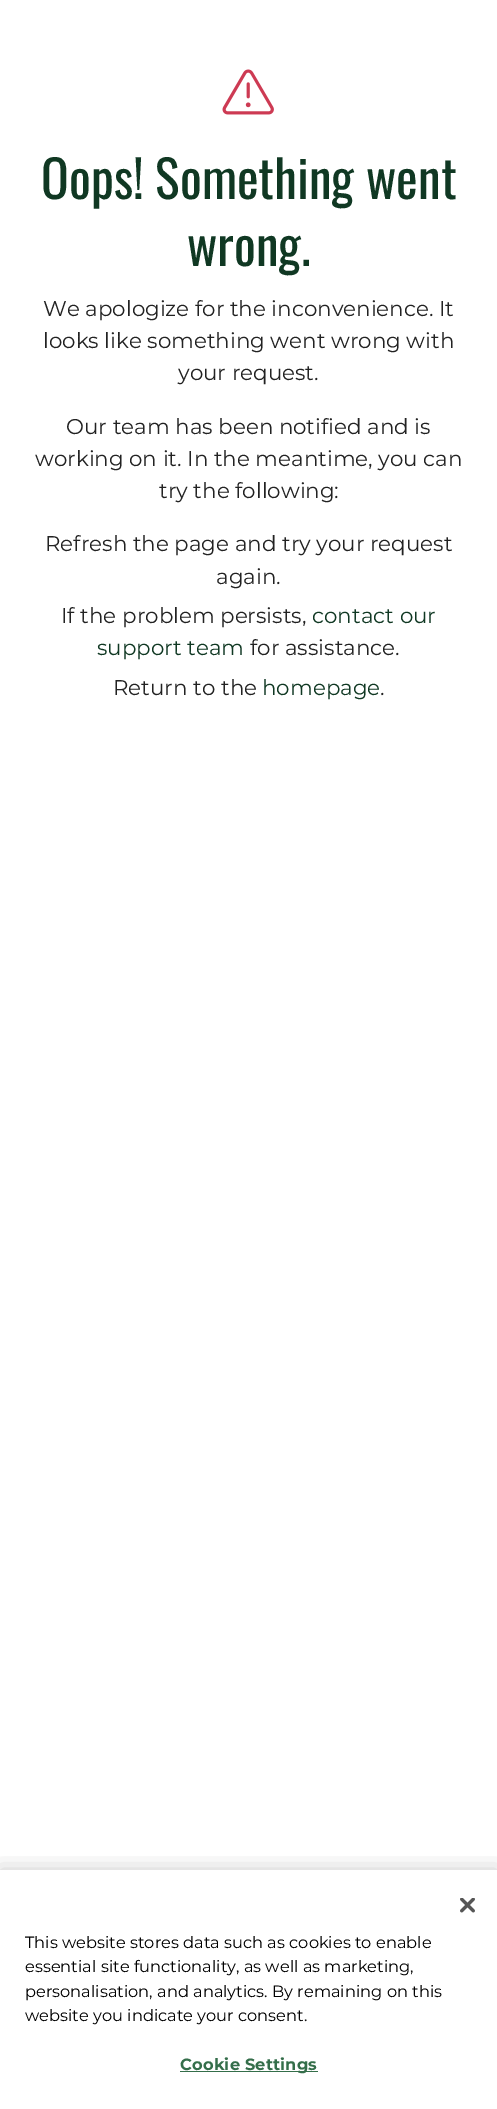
%!PS
<< /PageSize [497 2109] /PageUsesTransparency true >> setpagedevice
/mt/moveto load def
/gs/gsave load def
/gr/grestore load def
/co { dup -16 bitshift 255 div exch dup -8 bitshift 255 and 255 div exch 255 and 255 div setrgbcolor } def
/fn { [ exch dup neg 0 0 3 -1 roll 0 0 ] selectfont } def
/tx { co fn moveto show } def
/bx { co rectfill } def
/al { dup .setfillconstantalpha .setstrokeconstantalpha } def
/rr { 5 dict begin { /r /h /w /y /x } { exch def } forall
  x r add y moveto x w add y 2 copy h add r arct x w add y h add x 1 index r arct
  x y h add x y r arct x y 2 copy exch w add exch r arct closepath end } def
/sh { 12 dict begin { /a /b /q /h /w /y /x } { exch def } forall gsave /was 0 def
  9 -2 -9 { dup b mul 4 div /e exch def 1 sub .425 mul 2.718 exch exp 1 add a .99 .min exch div /now exch def
    1 1 now sub 1 was sub div sub al /was now def
    w h .min e 2 mul add 0 gt { x e sub y e sub w e 2 mul add h e 2 mul add
      q e add b .6 mul add w h .min 2 div e add .min 0 .max rr fill } if } for grestore end } def
/im { 5 dict begin { /h /w /y /x /name } { exch def } forall
  gsave x y translate w h scale
  w h 8 [w 0 0 h 0 0] name (r) file false 3 colorimage grestore end } def
0 .pushpdf14devicefilter
0 2109 translate 1 -1 scale
4 setmiterlimit
0 0 497 2109 16#FFFFFF bx
(media/1.raw) 222 69 52 46 im
gs
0 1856 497 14 rectclip
16#000000 co
0 1870 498 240 0 11 .2 sh
gr
(media/2.raw) 460 1898 15 15 im
180 2071 138 1 16#346E4A bx
(Oops! Something went) 41 199 /Oswald-Regular 51.5 16#103823 tx
(wrong.) 187 266 /Oswald-Regular 51.5 16#103823 tx
(We apologize for the inconvenience. It) 43 316 /Montserrat-Regular 21.4 16#222222 tx
(looks like something went wrong with) 43 348 /Montserrat-Regular 21.4 16#222222 tx
(your request.) 178 380 /Montserrat-Regular 21.4 16#222222 tx
(Our team has been notified and is) 66 434 /Montserrat-Regular 21.4 16#222222 tx
(working on it. In the meantime, you can) 35 466 /Montserrat-Regular 21.4 16#222222 tx
(try the following:) 159 498 /Montserrat-Regular 21.4 16#222222 tx
(Refresh the page and try your request) 45 551 /Montserrat-Regular 21.4 16#222222 tx
(again.) 216 584 /Montserrat-Regular 21.4 16#222222 tx
(If the problem persists,) 61 623 /Montserrat-Regular 21.4 16#222222 tx
(contact our) 312 623 /Montserrat-Regular 21.4 16#103823 tx
(support team) 97 655 /Montserrat-Regular 21.4 16#103823 tx
(for assistance.) 250 655 /Montserrat-Regular 21.4 16#222222 tx
(Return to the) 113 695 /Montserrat-Regular 21.4 16#222222 tx
(homepage) 262 695 /Montserrat-Regular 21.4 16#103823 tx
(.) 380 695 /Montserrat-Regular 21.4 16#222222 tx
(This website stores data such as cookies to enable) 25 1948 /Montserrat-Regular 16.25 16#000000 tx
(essential site functionality, as well as marketing,) 25 1972 /Montserrat-Regular 16.25 16#000000 tx
(personalisation, and analytics. By remaining on this) 25 1997 /Montserrat-Regular 16.25 16#000000 tx
(website you indicate your consent.) 25 2021 /Montserrat-Regular 16.25 16#000000 tx
/Montserrat-Bold 16.25 fn
16#346E4A co
180 2070 mt .2 0 (Cookie Settings) ashow
.poppdf14devicefilter showpage
